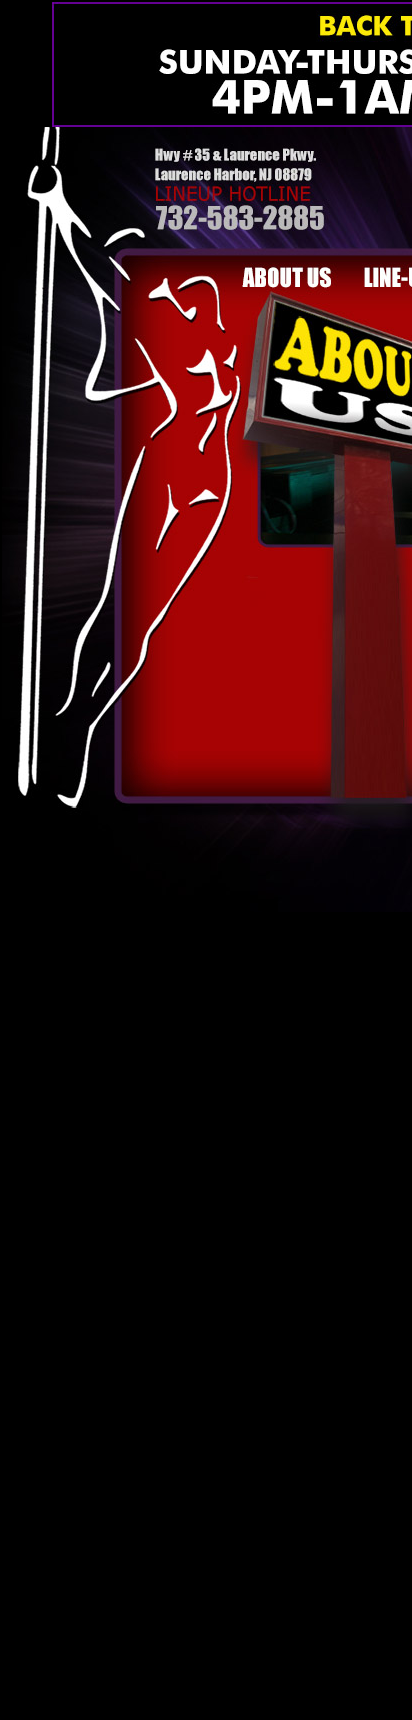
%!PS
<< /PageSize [412 1720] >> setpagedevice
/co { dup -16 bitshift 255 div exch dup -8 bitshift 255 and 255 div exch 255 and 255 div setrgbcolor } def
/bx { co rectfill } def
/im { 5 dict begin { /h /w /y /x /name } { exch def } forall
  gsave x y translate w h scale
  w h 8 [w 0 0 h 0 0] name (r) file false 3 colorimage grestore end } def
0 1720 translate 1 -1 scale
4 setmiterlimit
0 0 412 1720 16#000000 bx
(media/1.raw) 52 2 360 125 im
(media/2.raw) 2 127 410 785 im
showpage
